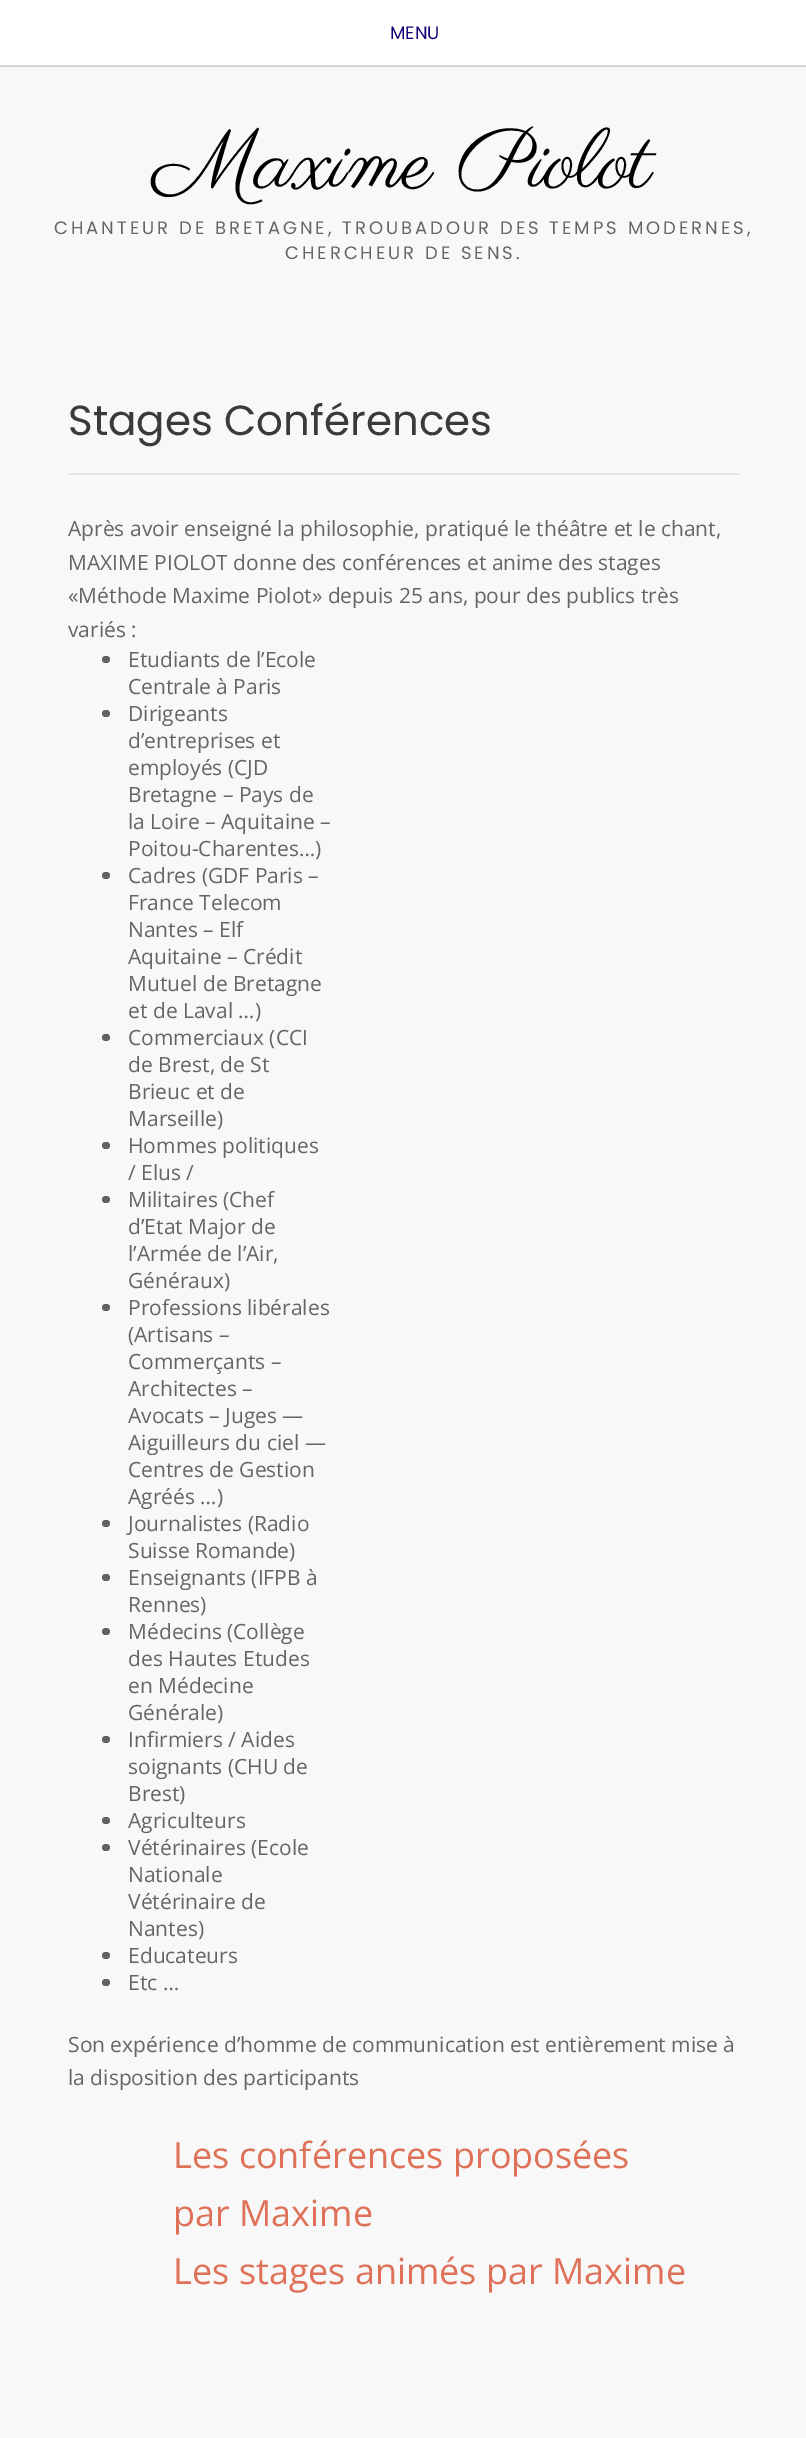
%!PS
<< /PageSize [806 2438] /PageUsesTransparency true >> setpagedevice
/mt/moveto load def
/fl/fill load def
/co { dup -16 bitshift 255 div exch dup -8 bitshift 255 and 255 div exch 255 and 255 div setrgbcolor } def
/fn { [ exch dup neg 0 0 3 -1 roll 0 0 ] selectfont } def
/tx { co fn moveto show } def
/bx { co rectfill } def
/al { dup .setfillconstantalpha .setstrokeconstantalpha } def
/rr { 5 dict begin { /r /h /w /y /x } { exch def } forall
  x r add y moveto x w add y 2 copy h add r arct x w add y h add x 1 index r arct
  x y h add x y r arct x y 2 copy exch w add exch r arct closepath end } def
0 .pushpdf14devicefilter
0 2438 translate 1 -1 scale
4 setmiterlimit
0 0 806 2438 16#F8F8F8 bx
0 0 806 66 16#FFFFFF bx
0.08 al
0 65 806 2 16#000000 bx
0 65 806 2 16#000000 bx
1 al
68 473 672 2 16#E4E4E4 bx
16#636161 co
102 656 8 7 3.5 rr fl
102 710 8 7 3.5 rr fl
102 872 8 7 3.5 rr fl
102 1034 8 7 3.5 rr fl
102 1142 8 7 3.5 rr fl
102 1196 8 7 3.5 rr fl
102 1304 8 7 3.5 rr fl
102 1520 8 7 3.5 rr fl
102 1574 8 7 3.5 rr fl
102 1628 8 7 3.5 rr fl
102 1736 8 7 3.5 rr fl
102 1817 8 7 3.5 rr fl
102 1844 8 7 3.5 rr fl
102 1952 8 7 3.5 rr fl
102 1979 8 7 3.5 rr fl
(MENU) 390 39 /Poppins-Regular 18 16#0F0075 tx
(Maxime Piolot) 154 187 /Parisienne-Regular 84 16#000000 tx
/Poppins-Regular 18 fn
16#656565 co
54 234 mt 3 0 (CHANTEUR DE BRETAGNE, TROUBADOUR DES TEMPS MODERNES,) ashow
285 259 mt 3 0 (CHERCHEUR DE SENS.) ashow
(Stages Conférences) 68 435 /Poppins-Regular 42 16#3A3A3A tx
(Après avoir enseigné la philosophie, pratiqué le théâtre et le chant,) 68 536 /OpenSans-Regular 21 16#656565 tx
(MAXIME PIOLOT donne des conférences et anime des stages) 68 570 /OpenSans-Regular 21 16#656565 tx
(«Méthode Maxime Piolot» depuis 25 ans, pour des publics très) 68 603 /OpenSans-Regular 21 16#656565 tx
(variés :) 68 637 /OpenSans-Regular 21 16#656565 tx
(Etudiants de l’Ecole) 128 667 /OpenSans-Regular 21 16#656565 tx
(Centrale à Paris) 128 694 /OpenSans-Regular 21 16#656565 tx
(Dirigeants) 128 721 /OpenSans-Regular 21 16#656565 tx
(d’entreprises et) 128 748 /OpenSans-Regular 21 16#656565 tx
(employés \(CJD) 128 775 /OpenSans-Regular 21 16#656565 tx
(Bretagne – Pays de) 128 802 /OpenSans-Regular 21 16#656565 tx
(la Loire – Aquitaine –) 128 829 /OpenSans-Regular 21 16#656565 tx
(Poitou-Charentes…\)) 128 856 /OpenSans-Regular 21 16#656565 tx
(Cadres \(GDF Paris –) 128 883 /OpenSans-Regular 21 16#656565 tx
(France Telecom) 128 910 /OpenSans-Regular 21 16#656565 tx
(Nantes – Elf) 128 937 /OpenSans-Regular 21 16#656565 tx
(Aquitaine – Crédit) 128 964 /OpenSans-Regular 21 16#656565 tx
(Mutuel de Bretagne) 128 991 /OpenSans-Regular 21 16#656565 tx
(et de Laval …\)) 128 1018 /OpenSans-Regular 21 16#656565 tx
(Commerciaux \(CCI) 128 1045 /OpenSans-Regular 21 16#656565 tx
(de Brest, de St) 128 1072 /OpenSans-Regular 21 16#656565 tx
(Brieuc et de) 128 1099 /OpenSans-Regular 21 16#656565 tx
(Marseille\)) 128 1126 /OpenSans-Regular 21 16#656565 tx
(Hommes politiques) 128 1153 /OpenSans-Regular 21 16#656565 tx
(/ Elus /) 128 1180 /OpenSans-Regular 21 16#656565 tx
(Militaires \(Chef) 128 1207 /OpenSans-Regular 21 16#656565 tx
(d’Etat Major de) 128 1234 /OpenSans-Regular 21 16#656565 tx
(l’Armée de l’Air,) 128 1261 /OpenSans-Regular 21 16#656565 tx
(Généraux\)) 128 1288 /OpenSans-Regular 21 16#656565 tx
(Professions libérales) 128 1315 /OpenSans-Regular 21 16#656565 tx
(\(Artisans –) 128 1342 /OpenSans-Regular 21 16#656565 tx
(Commerçants –) 128 1369 /OpenSans-Regular 21 16#656565 tx
(Architectes –) 128 1396 /OpenSans-Regular 21 16#656565 tx
(Avocats – Juges —) 128 1423 /OpenSans-Regular 21 16#656565 tx
(Aiguilleurs du ciel —) 128 1450 /OpenSans-Regular 21 16#656565 tx
(Centres de Gestion) 128 1477 /OpenSans-Regular 21 16#656565 tx
(Agréés …\)) 128 1504 /OpenSans-Regular 21 16#656565 tx
(Journalistes \(Radio) 128 1531 /OpenSans-Regular 21 16#656565 tx
(Suisse Romande\)) 128 1558 /OpenSans-Regular 21 16#656565 tx
(Enseignants \(IFPB à) 128 1585 /OpenSans-Regular 21 16#656565 tx
(Rennes\)) 128 1612 /OpenSans-Regular 21 16#656565 tx
(Médecins \(Collège) 128 1639 /OpenSans-Regular 21 16#656565 tx
(des Hautes Etudes) 128 1666 /OpenSans-Regular 21 16#656565 tx
(en Médecine) 128 1693 /OpenSans-Regular 21 16#656565 tx
(Générale\)) 128 1720 /OpenSans-Regular 21 16#656565 tx
(Infirmiers / Aides) 128 1747 /OpenSans-Regular 21 16#656565 tx
(soignants \(CHU de) 128 1774 /OpenSans-Regular 21 16#656565 tx
(Brest\)) 128 1801 /OpenSans-Regular 21 16#656565 tx
(Agriculteurs) 128 1828 /OpenSans-Regular 21 16#656565 tx
(Vétérinaires \(Ecole) 128 1855 /OpenSans-Regular 21 16#656565 tx
(Nationale) 128 1882 /OpenSans-Regular 21 16#656565 tx
(Vétérinaire de) 128 1909 /OpenSans-Regular 21 16#656565 tx
(Nantes\)) 128 1936 /OpenSans-Regular 21 16#656565 tx
(Educateurs) 128 1963 /OpenSans-Regular 21 16#656565 tx
(Etc …) 128 1990 /OpenSans-Regular 21 16#656565 tx
(Son expérience d’homme de communication est entièrement mise à) 68 2052 /OpenSans-Regular 21 16#656565 tx
(la disposition des participants) 68 2085 /OpenSans-Regular 21 16#656565 tx
(Les conférences proposées) 173 2168 /OpenSans-Regular 36 16#DE7158 tx
(par Maxime) 173 2226 /OpenSans-Regular 36 16#DE7158 tx
(Les stages animés par Maxime) 173 2284 /OpenSans-Regular 36 16#DE7158 tx
.poppdf14devicefilter showpage
